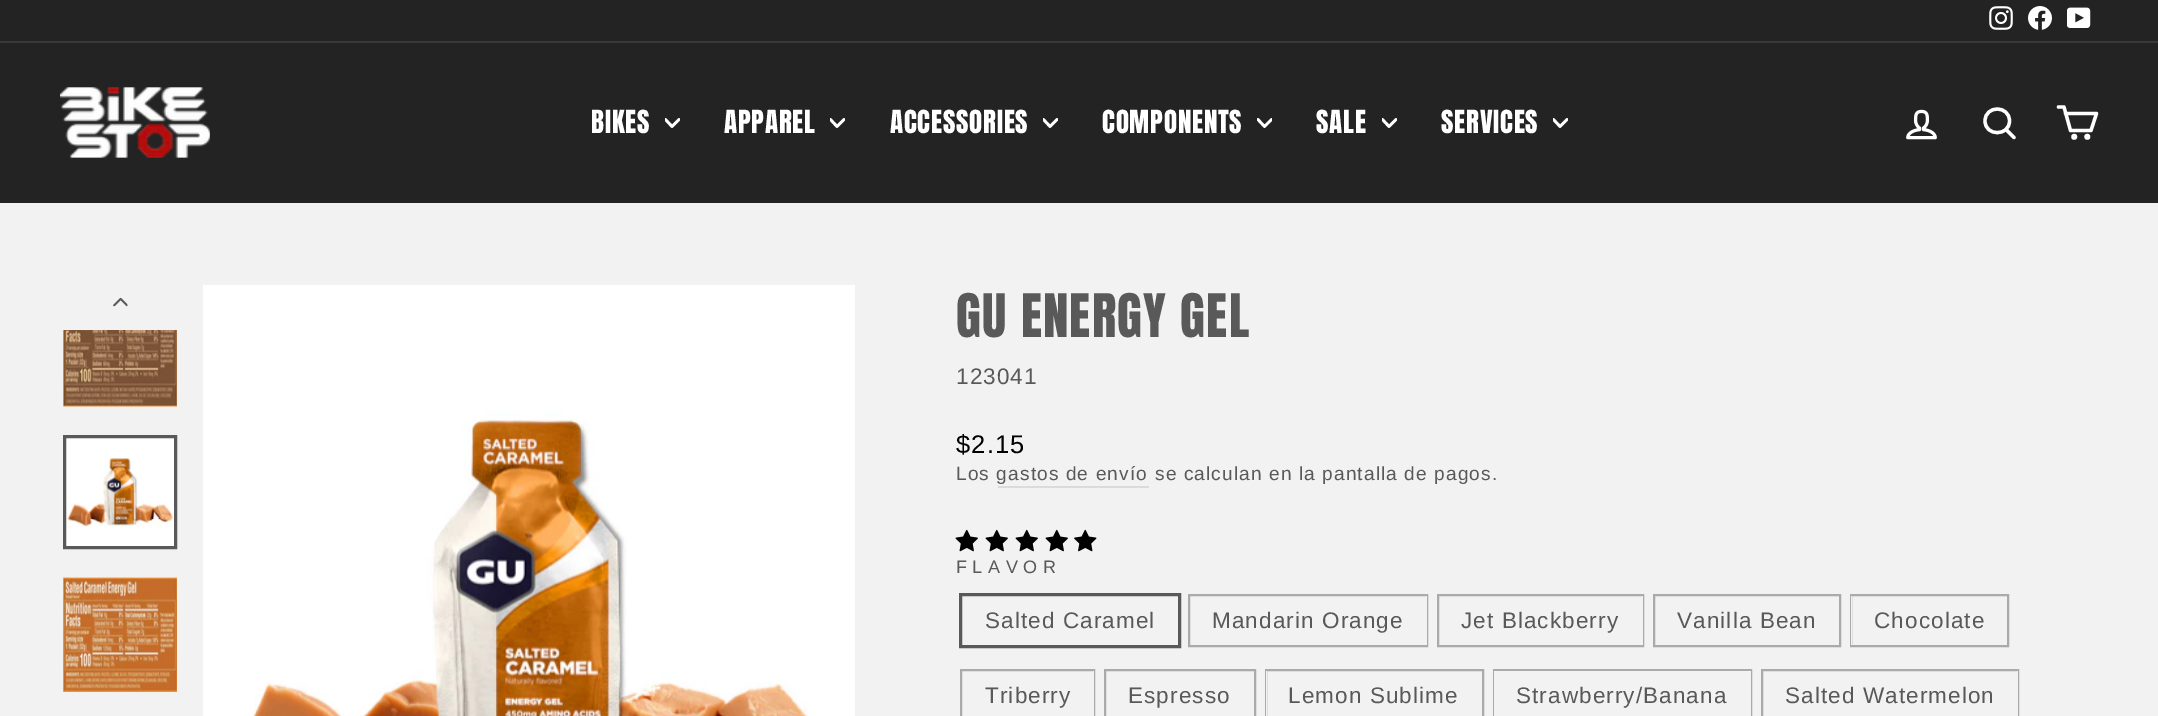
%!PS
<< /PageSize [2158 716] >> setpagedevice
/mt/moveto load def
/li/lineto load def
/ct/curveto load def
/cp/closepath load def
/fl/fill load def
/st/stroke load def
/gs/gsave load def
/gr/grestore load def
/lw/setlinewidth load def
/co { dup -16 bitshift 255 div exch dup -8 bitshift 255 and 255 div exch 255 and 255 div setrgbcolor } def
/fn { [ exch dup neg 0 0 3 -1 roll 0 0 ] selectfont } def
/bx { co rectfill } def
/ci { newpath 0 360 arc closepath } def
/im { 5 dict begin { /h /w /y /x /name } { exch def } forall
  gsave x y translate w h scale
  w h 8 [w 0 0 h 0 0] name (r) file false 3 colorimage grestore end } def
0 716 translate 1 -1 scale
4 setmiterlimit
0 0 2158 716 16#F2F2F2 bx
0 0 2158 41 16#232323 bx
(media/1.raw) 1989 6 24 24 im
(media/2.raw) 2028 6 24 24 im
(media/3.raw) 2067 7 24 21 im
0 43 2158 160 16#232323 bx
0 41 2158 2 16#393939 bx
(media/4.raw) 60 87 150 71 im
gs
665 116 15 15 rectclip
16#FFFFFF co
2.7 lw
1 setlinecap
1 setlinejoin
665.5 119.5 mt 672 126.5 li 679 119.5 li st
gr
gs
830 116 15 15 rectclip
16#FFFFFF co
2.7 lw
1 setlinecap
1 setlinejoin
830.5 119.5 mt 837 126.5 li 844 119.5 li st
gr
gs
1043 116 15 15 rectclip
16#FFFFFF co
2.7 lw
1 setlinecap
1 setlinejoin
1043.5 119.5 mt 1050 126.5 li 1057 119.5 li st
gr
gs
1257 116 15 15 rectclip
16#FFFFFF co
2.7 lw
1 setlinecap
1 setlinejoin
1258 119.5 mt 1264.5 126.5 li 1271.5 119.5 li st
gr
gs
1382 116 15 15 rectclip
16#FFFFFF co
2.7 lw
1 setlinecap
1 setlinejoin
1382.5 119.5 mt 1389 126.5 li 1396 119.5 li st
gr
gs
1553 116 15 15 rectclip
16#FFFFFF co
2.7 lw
1 setlinecap
1 setlinejoin
1553.5 119.5 mt 1560 126.5 li 1567 119.5 li st
gr
(media/5.raw) 1906 109 31 31 im
16#FFFFFF co
3.3 lw
1 setlinecap
1 setlinejoin
2009.5 121 mt 2009.5 136.5 1985 136.5 1985 121 ct 1985 105 2009.5 105 2009.5 121 ct cp 2014 137.5 mt 2006 129.5 li st
2065.5 113.5 mt 2096.5 113.5 li 2091 130.5 li 2070.5 130.5 li 2064 107 li 2058.5 107 li st
0 setlinecap
0 setlinejoin
2074.2 136.8 1.3 ci st
2087.3 136.8 1.3 ci gs fl gr
st
(media/6.raw) 113 297 15 10 im
(media/7.raw) 63 330 114 77 im
(media/8.raw) 66 438 108 108 im
16#595959 co
3 lw
64.5 436.5 111 111 rectstroke
(media/9.raw) 63 577 114 115 im
(media/10.raw) 203 285 652 431 im
998 486 151 2 16#DBDBDB bx
(media/11.raw) 955 529 23 23 im
(media/11.raw) 985 529 23 23 im
(media/11.raw) 1015 529 23 23 im
(media/11.raw) 1045 529 23 23 im
(media/12.raw) 1074 529 23 23 im
16#595959 co
960.5 594.5 219 52 rectstroke
16#AAAAAA co
2 lw
1189 595 238 51 rectstroke
1426 596 1 49 16#F2F2F2 bx
16#AAAAAA co
1438 595 205 51 rectstroke
1642 596 1 49 16#F2F2F2 bx
16#AAAAAA co
1654 595 186 51 rectstroke
1851 595 157 51 rectstroke
1851 596 1 49 16#F2F2F2 bx
16#AAAAAA co
961 670 133 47 rectstroke
1093 671 1 45 16#F2F2F2 bx
16#AAAAAA co
1105 670 150 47 rectstroke
1266 670 217 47 rectstroke
1266 671 1 45 16#F2F2F2 bx
16#AAAAAA co
1494 670 257 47 rectstroke
1494 671 257 45 16#F2F2F2 bx
16#AAAAAA co
1762 670 256 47 rectstroke
2017 671 1 45 16#F2F2F2 bx
/Anton-Regular 27 fn
16#FFFFFF co
591 133 mt .75 0 (BIKES) ashow
724 133 mt .75 0 (APPAREL) ashow
890 133 mt .75 0 (ACCESSORIES) ashow
1102 133 mt .75 0 (COMPONENTS) ashow
1316 133 mt .75 0 (SALE) ashow
1441 133 mt .75 0 (SERVICES) ashow
/Anton-Regular 51 fn
16#595959 co
956 337 mt 1.25 0 (GU ENERGY GEL) ashow
/LiberationSans-Regular 22.5 fn
956 384 mt 1.1 0 (123041) ashow
/LiberationSans-Regular 25.5 fn
16#000000 co
956 453 mt 1.1 0 ($2.15) ashow
/LiberationSans-Regular 19.1 fn
16#595959 co
956 480 mt 1.1 0 (Los gastos de envío) ashow
1155 480 mt 1.1 0 (se calculan en la pantalla de pagos.) ashow
/LiberationSans-Regular 18 fn
956 573 mt 5.5 0 (FLAVOR) ashow
/LiberationSans-Regular 22.5 fn
985 628 mt 1.1 0 (Salted Caramel) ashow
1212 628 mt 1.1 0 (Mandarin Orange) ashow
1461 628 mt 1.1 0 (Jet Blackberry) ashow
1677 628 mt 1.1 0 (Vanilla Bean) ashow
1874 628 mt 1.1 0 (Chocolate) ashow
985 703 mt 1.1 0 (Triberry) ashow
1128 703 mt 1.1 0 (Espresso) ashow
1288 703 mt 1.1 0 (Lemon Sublime) ashow
1516 703 mt 1.1 0 (Strawberry/Banana) ashow
1785 703 mt 1.1 0 (Salted Watermelon) ashow
showpage
